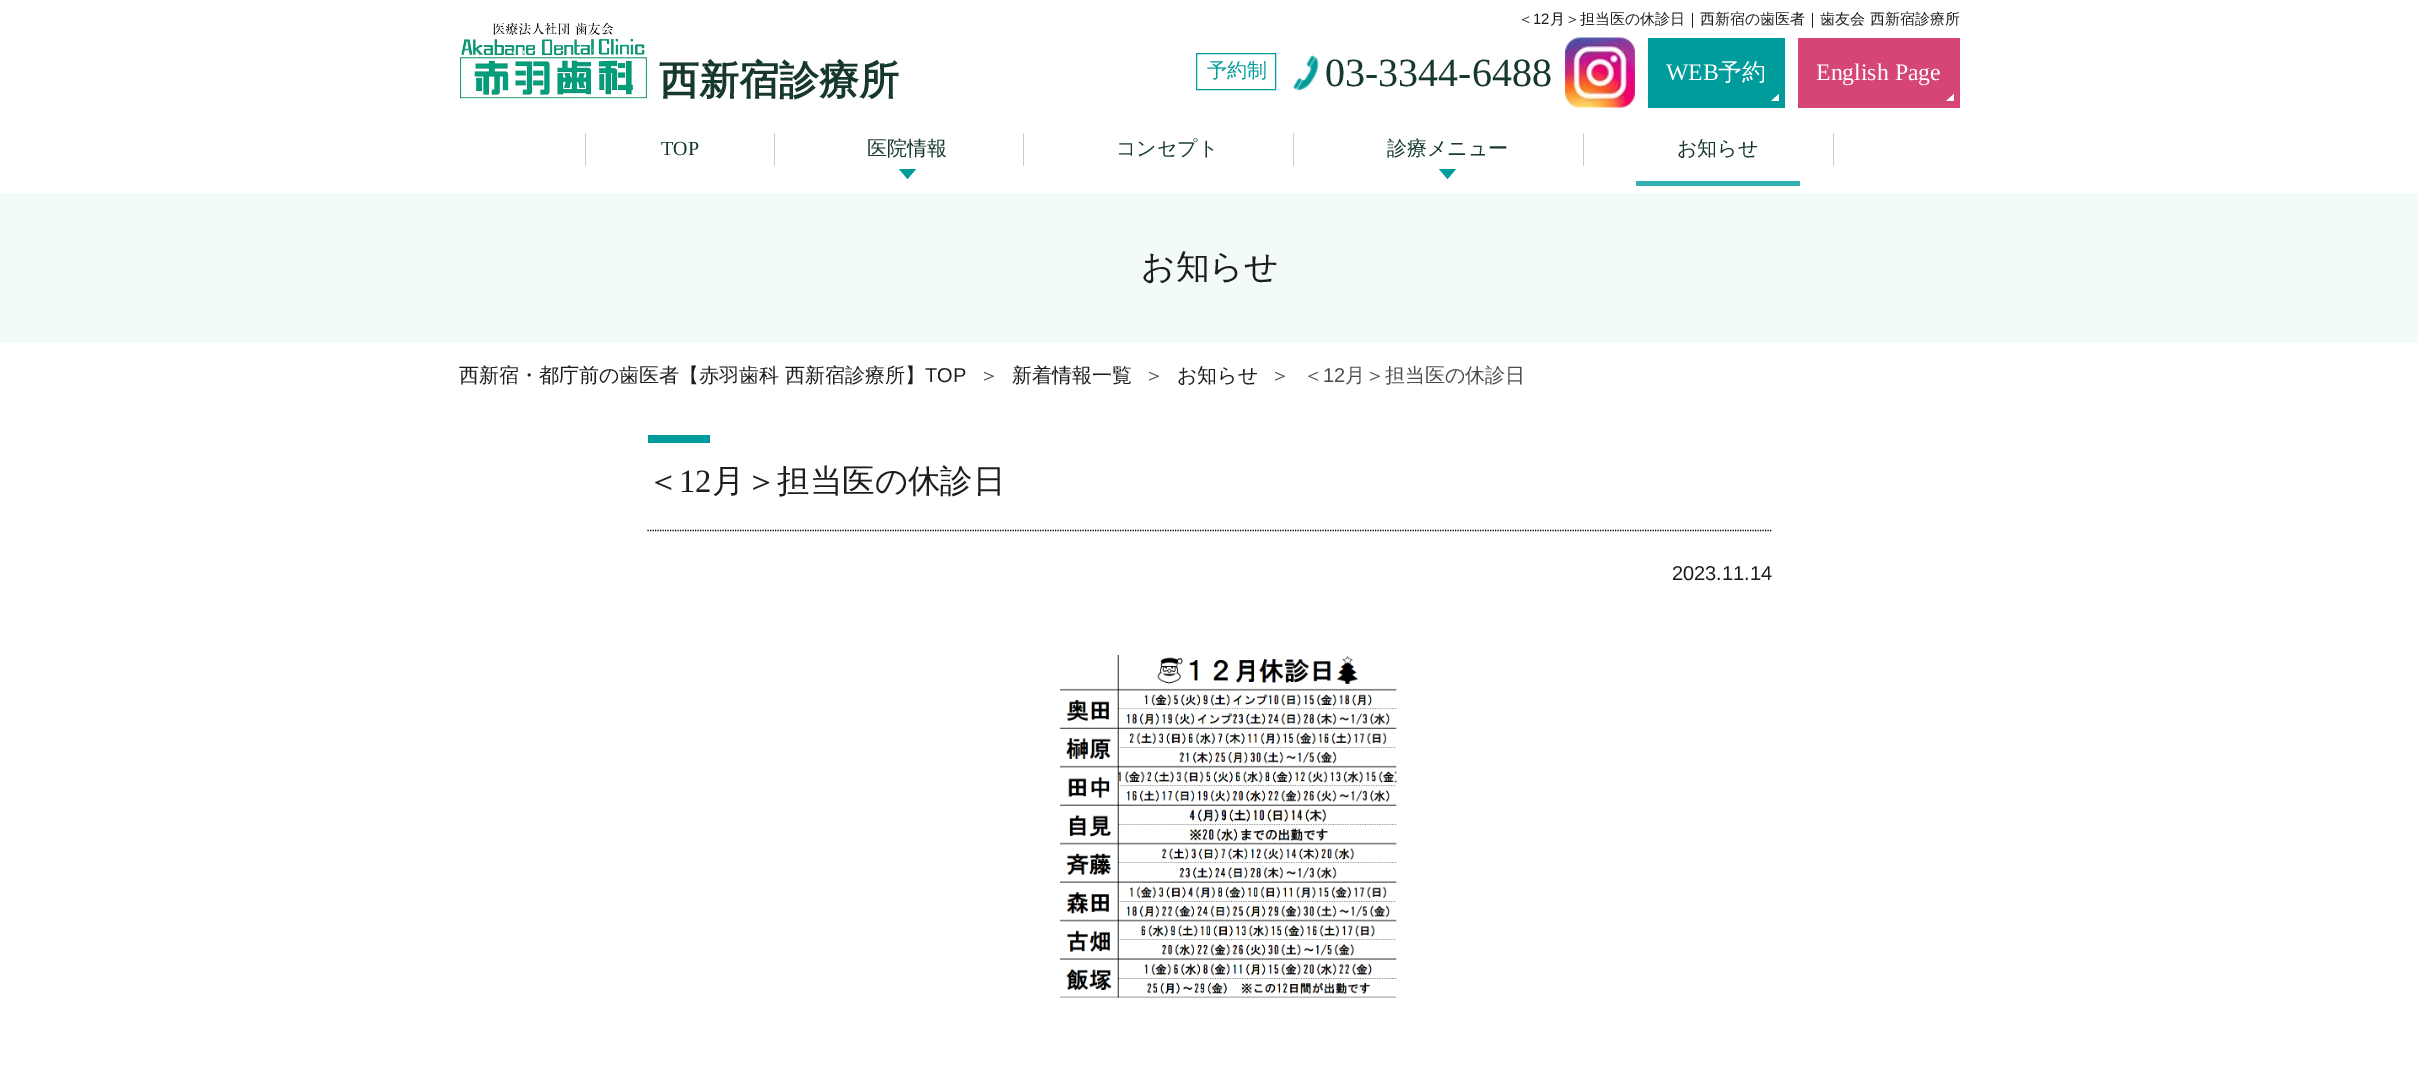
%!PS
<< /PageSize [2418 1080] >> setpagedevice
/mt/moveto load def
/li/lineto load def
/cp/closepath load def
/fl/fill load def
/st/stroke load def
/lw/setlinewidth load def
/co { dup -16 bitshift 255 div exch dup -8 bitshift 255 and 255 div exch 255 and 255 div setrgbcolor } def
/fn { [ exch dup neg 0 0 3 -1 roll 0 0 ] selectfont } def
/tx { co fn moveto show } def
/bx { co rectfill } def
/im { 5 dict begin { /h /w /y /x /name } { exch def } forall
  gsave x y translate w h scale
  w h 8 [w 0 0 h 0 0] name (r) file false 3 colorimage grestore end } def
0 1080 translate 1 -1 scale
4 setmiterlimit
0 0 2418 1080 16#FFFFFF bx
(media/1.raw) 460 22 188 77 im
16#009C9B co
1196.5 53.5 79 36 rectstroke
(media/2.raw) 1293 55 26 35 im
(media/3.raw) 1565 37 70 71 im
1648 38 137 70 16#009C9B bx
16#FFFFFF co
1779 101 mt 1771 101 li 1779 94 li cp fl
1798 38 162 70 16#D54576 bx
16#FFFFFF co
1954 94 mt 1954 101 li 1946 101 li cp fl
774 133 1 33 16#CCCCCC bx
585 133 1 33 16#CCCCCC bx
1023 133 1 33 16#CCCCCC bx
16#009C9C co
899 169 mt 916 169 li 907.5 179 li cp fl
1293 133 1 33 16#CCCCCC bx
1583 133 1 33 16#CCCCCC bx
16#009C9C co
1439 169 mt 1456 169 li 1447.5 179 li cp fl
1833 133 1 33 16#CCCCCC bx
1636 181 164 5 16#33B1B0 bx
0 193 2418 150 16#F2FAFA bx
16#000000 co
1.2 lw
[1.25 1.25] 0 setdash
647.5 530.5 mt 1772.5 530.5 li st
648 435 62 8 16#009C9B bx
(media/4.raw) 1060 655 337 343 im
(西新宿診療所) 659 94 /WenQuanYiZenHei-Bold 40 16#16382F tx
(＜) 1518 24 /WenQuanYiZenHei-Medium 15 16#1D1D1D tx
(12) 1533 24 /LiberationSans-Regular 15 16#1D1D1D tx
(月＞担当医の休診日｜西新宿の歯医者｜歯友会 西新宿診療所) 1550 24 /WenQuanYiZenHei-Medium 15 16#1D1D1D tx
(予約制) 1207 77 /WenQuanYiZenHei-Medium 20 16#009C9B tx
(03-3344-6488) 1325 86 /LiberationSerif-Regular 40 16#16382F tx
(WEB) 1666 80 /LiberationSerif-Regular 23.75 16#FFFFFF tx
(予約) 1718 80 /WenQuanYiZenHei-Medium 23.75 16#FFFFFF tx
(English Page) 1816 80 /LiberationSerif-Regular 23.75 16#FFFFFF tx
(TOP) 661 155 /LiberationSerif-Regular 20 16#16382F tx
(医院情報) 867 155 /WenQuanYiZenHei-Medium 20 16#16382F tx
(コンセプト) 1116 155 /WenQuanYiZenHei-Medium 20 16#16382F tx
(診療メニュー) 1387 155 /WenQuanYiZenHei-Medium 20 16#16382F tx
(お知らせ) 1677 155 /WenQuanYiZenHei-Medium 20 16#16382F tx
(お知らせ) 1141 278 /WenQuanYiZenHei-Medium 33.75 16#1D1D1D tx
(西新宿・都庁前の歯医者【赤羽歯科 西新宿診療所】) 459 382 /WenQuanYiZenHei-Medium 20 16#1D1D1D tx
(TOP) 925 382 /LiberationSans-Regular 20 16#1D1D1D tx
(＞) 979 382 /WenQuanYiZenHei-Medium 20 16#4C4C4C tx
(新着情報一覧) 1012 382 /WenQuanYiZenHei-Medium 20 16#1D1D1D tx
(＞) 1144 382 /WenQuanYiZenHei-Medium 20 16#4C4C4C tx
(お知らせ) 1177 382 /WenQuanYiZenHei-Medium 20 16#1D1D1D tx
(＞) 1270 382 /WenQuanYiZenHei-Medium 20 16#4C4C4C tx
(＜) 1303 382 /WenQuanYiZenHei-Medium 20 16#4C4C4C tx
(12) 1323 382 /LiberationSans-Regular 20 16#4C4C4C tx
(月＞担当医の休診日) 1345 382 /WenQuanYiZenHei-Medium 20 16#4C4C4C tx
(＜) 647 492 /WenQuanYiZenHei-Medium 32.5 16#1D1D1D tx
(12) 679 492 /LiberationSerif-Regular 32.5 16#1D1D1D tx
(月＞担当医の休診日) 712 492 /WenQuanYiZenHei-Medium 32.5 16#1D1D1D tx
(2023.11.14) 1672 580 /LiberationSans-Regular 20 16#1D1D1D tx
showpage
